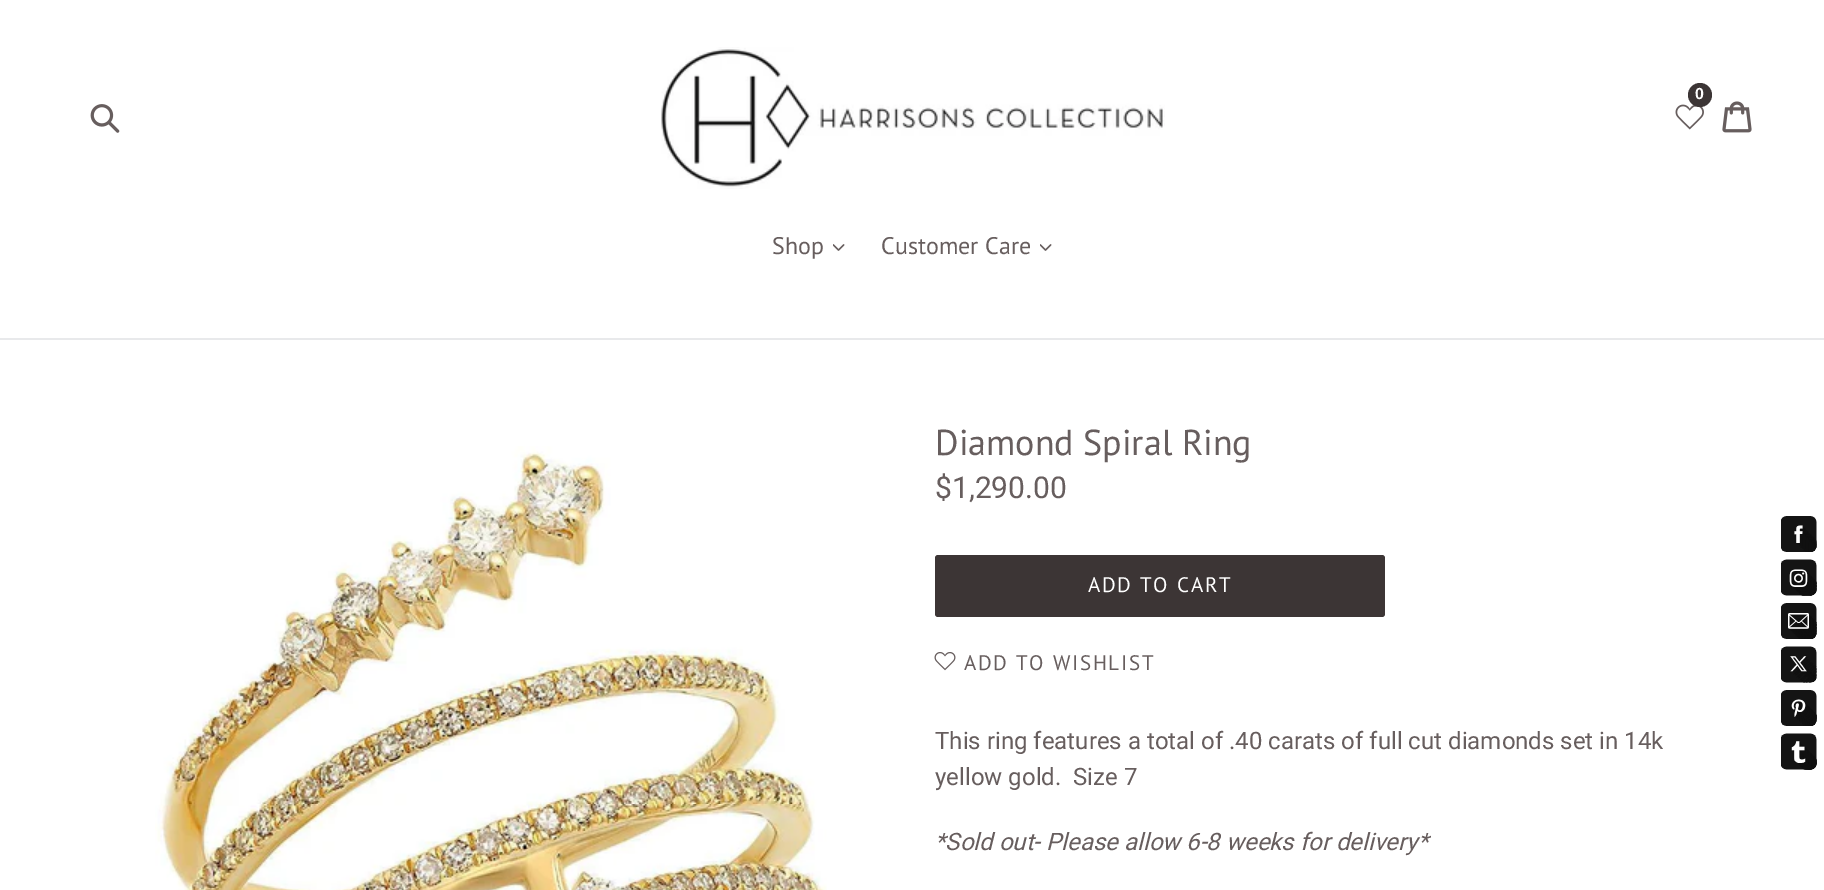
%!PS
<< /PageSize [1824 890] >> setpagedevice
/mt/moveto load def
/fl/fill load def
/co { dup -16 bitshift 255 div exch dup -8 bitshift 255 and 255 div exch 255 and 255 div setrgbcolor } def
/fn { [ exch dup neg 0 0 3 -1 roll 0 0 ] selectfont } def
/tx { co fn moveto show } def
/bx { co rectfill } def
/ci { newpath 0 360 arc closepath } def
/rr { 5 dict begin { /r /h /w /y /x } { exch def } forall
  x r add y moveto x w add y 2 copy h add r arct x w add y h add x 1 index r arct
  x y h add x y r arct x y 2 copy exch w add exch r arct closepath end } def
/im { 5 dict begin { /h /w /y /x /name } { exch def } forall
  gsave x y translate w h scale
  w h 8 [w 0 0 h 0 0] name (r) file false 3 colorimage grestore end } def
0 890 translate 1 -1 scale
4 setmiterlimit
0 0 1824 890 16#FFFFFF bx
(media/1.raw) 661 47 504 142 im
(media/2.raw) 1675 104 29 26 im
16#3C3535 co
1700 95 12 ci fl
(media/3.raw) 1722 101 30 32 im
(media/4.raw) 90 104 30 29 im
0 338 1824 2 16#E8E9EB bx
(media/5.raw) 833 244 12 7 im
(media/5.raw) 1040 244 12 7 im
(media/6.raw) 155 446 672 444 im
16#3C3535 co
935 555 450 62 3 rr fl
(media/7.raw) 934 652 22 19 im
(media/8.raw) 1781 516 36 254 im
(0) 1695 99 /LiberationSans-Bold 16 16#FFFFFF tx
(Shop) 772 254 /PTSans-Regular 24 16#675E5E tx
(Customer Care) 881 254 /PTSans-Regular 24 16#675E5E tx
(Diamond Spiral Ring) 935 455 /PTSans-Regular 36 16#675E5E tx
($1,290.00) 935 498 /Roboto-Regular 30 16#675E5E tx
/PTSans-Regular 21 fn
16#FFFFFF co
1088 592 mt 1.7 0 (ADD TO CART) ashow
16#675E5E co
964 670 mt 1.7 0 (ADD TO WISHLIST) ashow
(This ring features a total of .40 carats of full cut diamonds set in 14k) 935 749 /Roboto-Regular 24 16#675E5E tx
(yellow gold.  Size 7) 935 785 /Roboto-Regular 24 16#675E5E tx
(*Sold out- Please allow 6-8 weeks for delivery*) 935 850 /Roboto-Italic 24 16#675E5E tx
showpage
